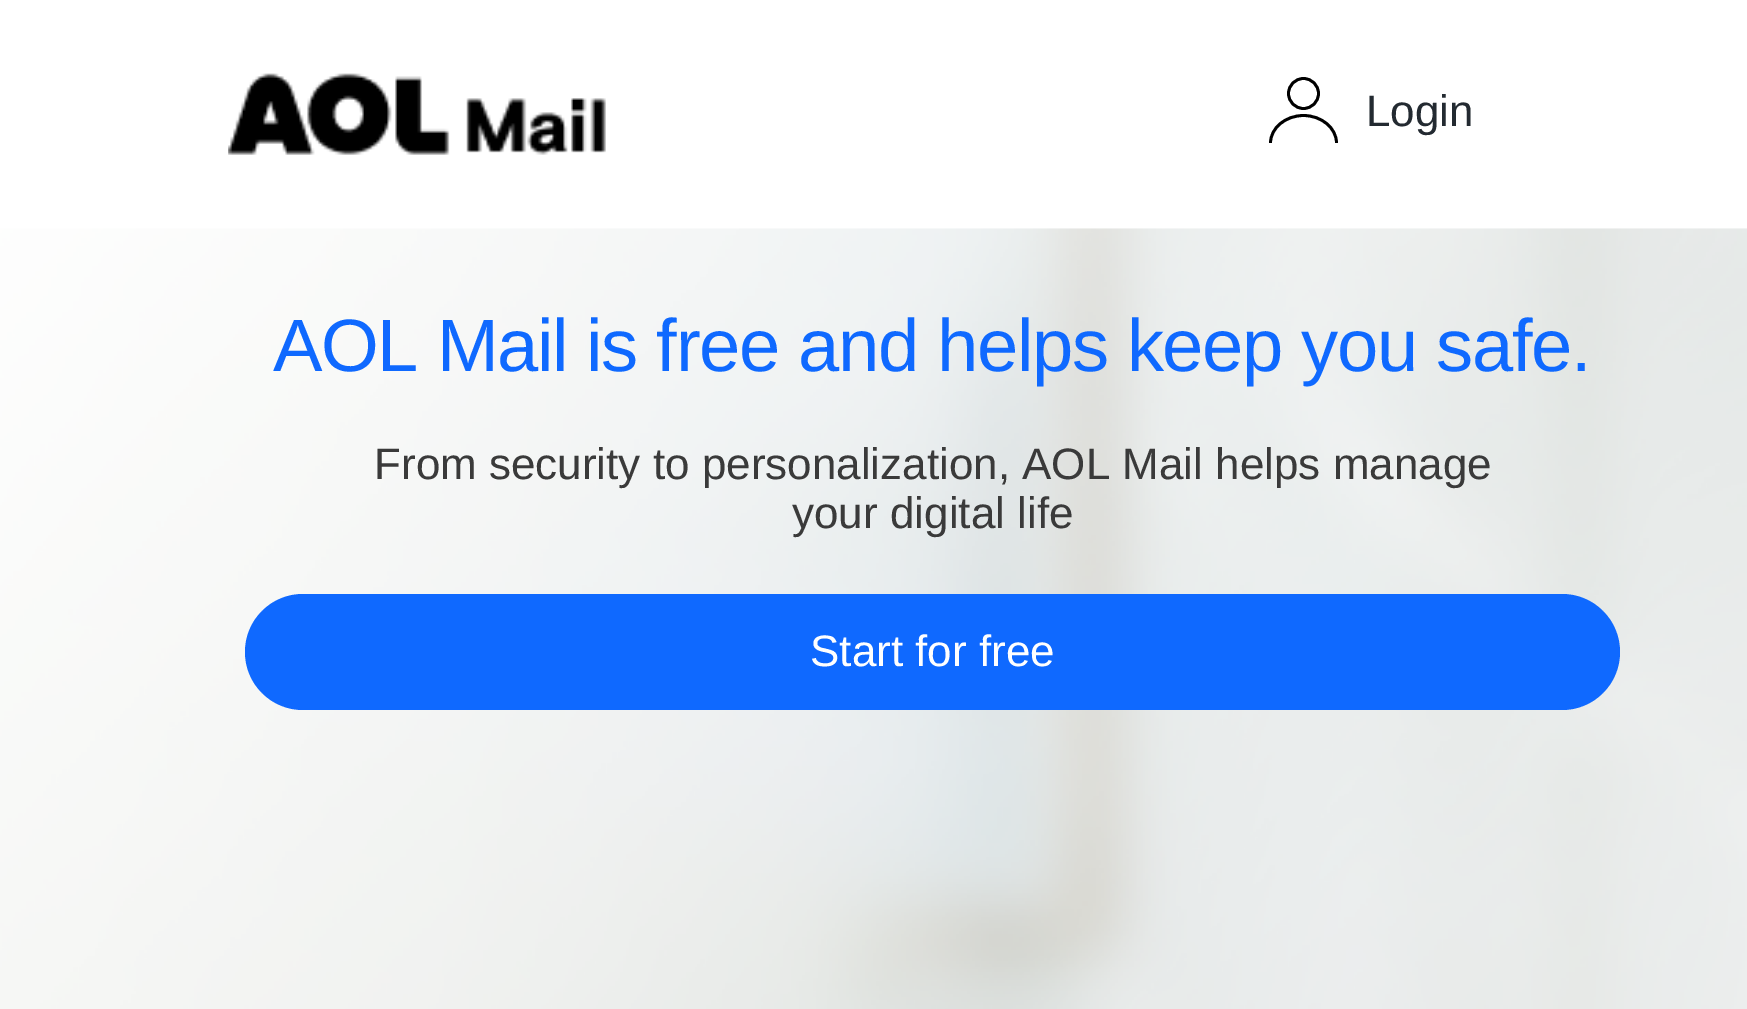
%!PS
<< /PageSize [1747 1009] >> setpagedevice
/mt/moveto load def
/ct/curveto load def
/fl/fill load def
/st/stroke load def
/gs/gsave load def
/gr/grestore load def
/lw/setlinewidth load def
/co { dup -16 bitshift 255 div exch dup -8 bitshift 255 and 255 div exch 255 and 255 div setrgbcolor } def
/fn { [ exch dup neg 0 0 3 -1 roll 0 0 ] selectfont } def
/tx { co fn moveto show } def
/bx { co rectfill } def
/ci { newpath 0 360 arc closepath } def
/rr { 5 dict begin { /r /h /w /y /x } { exch def } forall
  x r add y moveto x w add y 2 copy h add r arct x w add y h add x 1 index r arct
  x y h add x y r arct x y 2 copy exch w add exch r arct closepath end } def
/im { 5 dict begin { /h /w /y /x /name } { exch def } forall
  gsave x y translate w h scale
  w h 8 [w 0 0 h 0 0] name (r) file false 3 colorimage grestore end } def
0 1009 translate 1 -1 scale
4 setmiterlimit
0 0 1747 1009 16#FFFFFF bx
(media/1.raw) 228 73 378 82 im
16#000000 co
2.8 lw
1303.5 93.5 15 ci st
gs
1268 77 71 66 rectclip
1 setlinecap
1336.5 143 mt 1336.5 128 1321.5 115.5 1303.5 115.5 ct 1285.5 115.5 1270.5 128 1270.5 143 ct st
gr
(media/2.raw) 0 228 1747 781 im
16#0F69FF co
245 594 1375 116 58 rr fl
(Login) 1366 126 /LiberationSans-Regular 44 16#232A31 tx
/LiberationSans-Regular 74.25 fn
16#0F69FF co
273 371 mt -1.4 0 (AOL Mail is free and helps keep you safe.) ashow
(From security to personalization, AOL Mail helps manage) 374 479 /LiberationSans-Regular 44 16#3A3A3A tx
(your digital life) 792 528 /LiberationSans-Regular 44 16#3A3A3A tx
(Start for free) 810 666 /LiberationSans-Regular 44 16#FFFFFF tx
showpage
